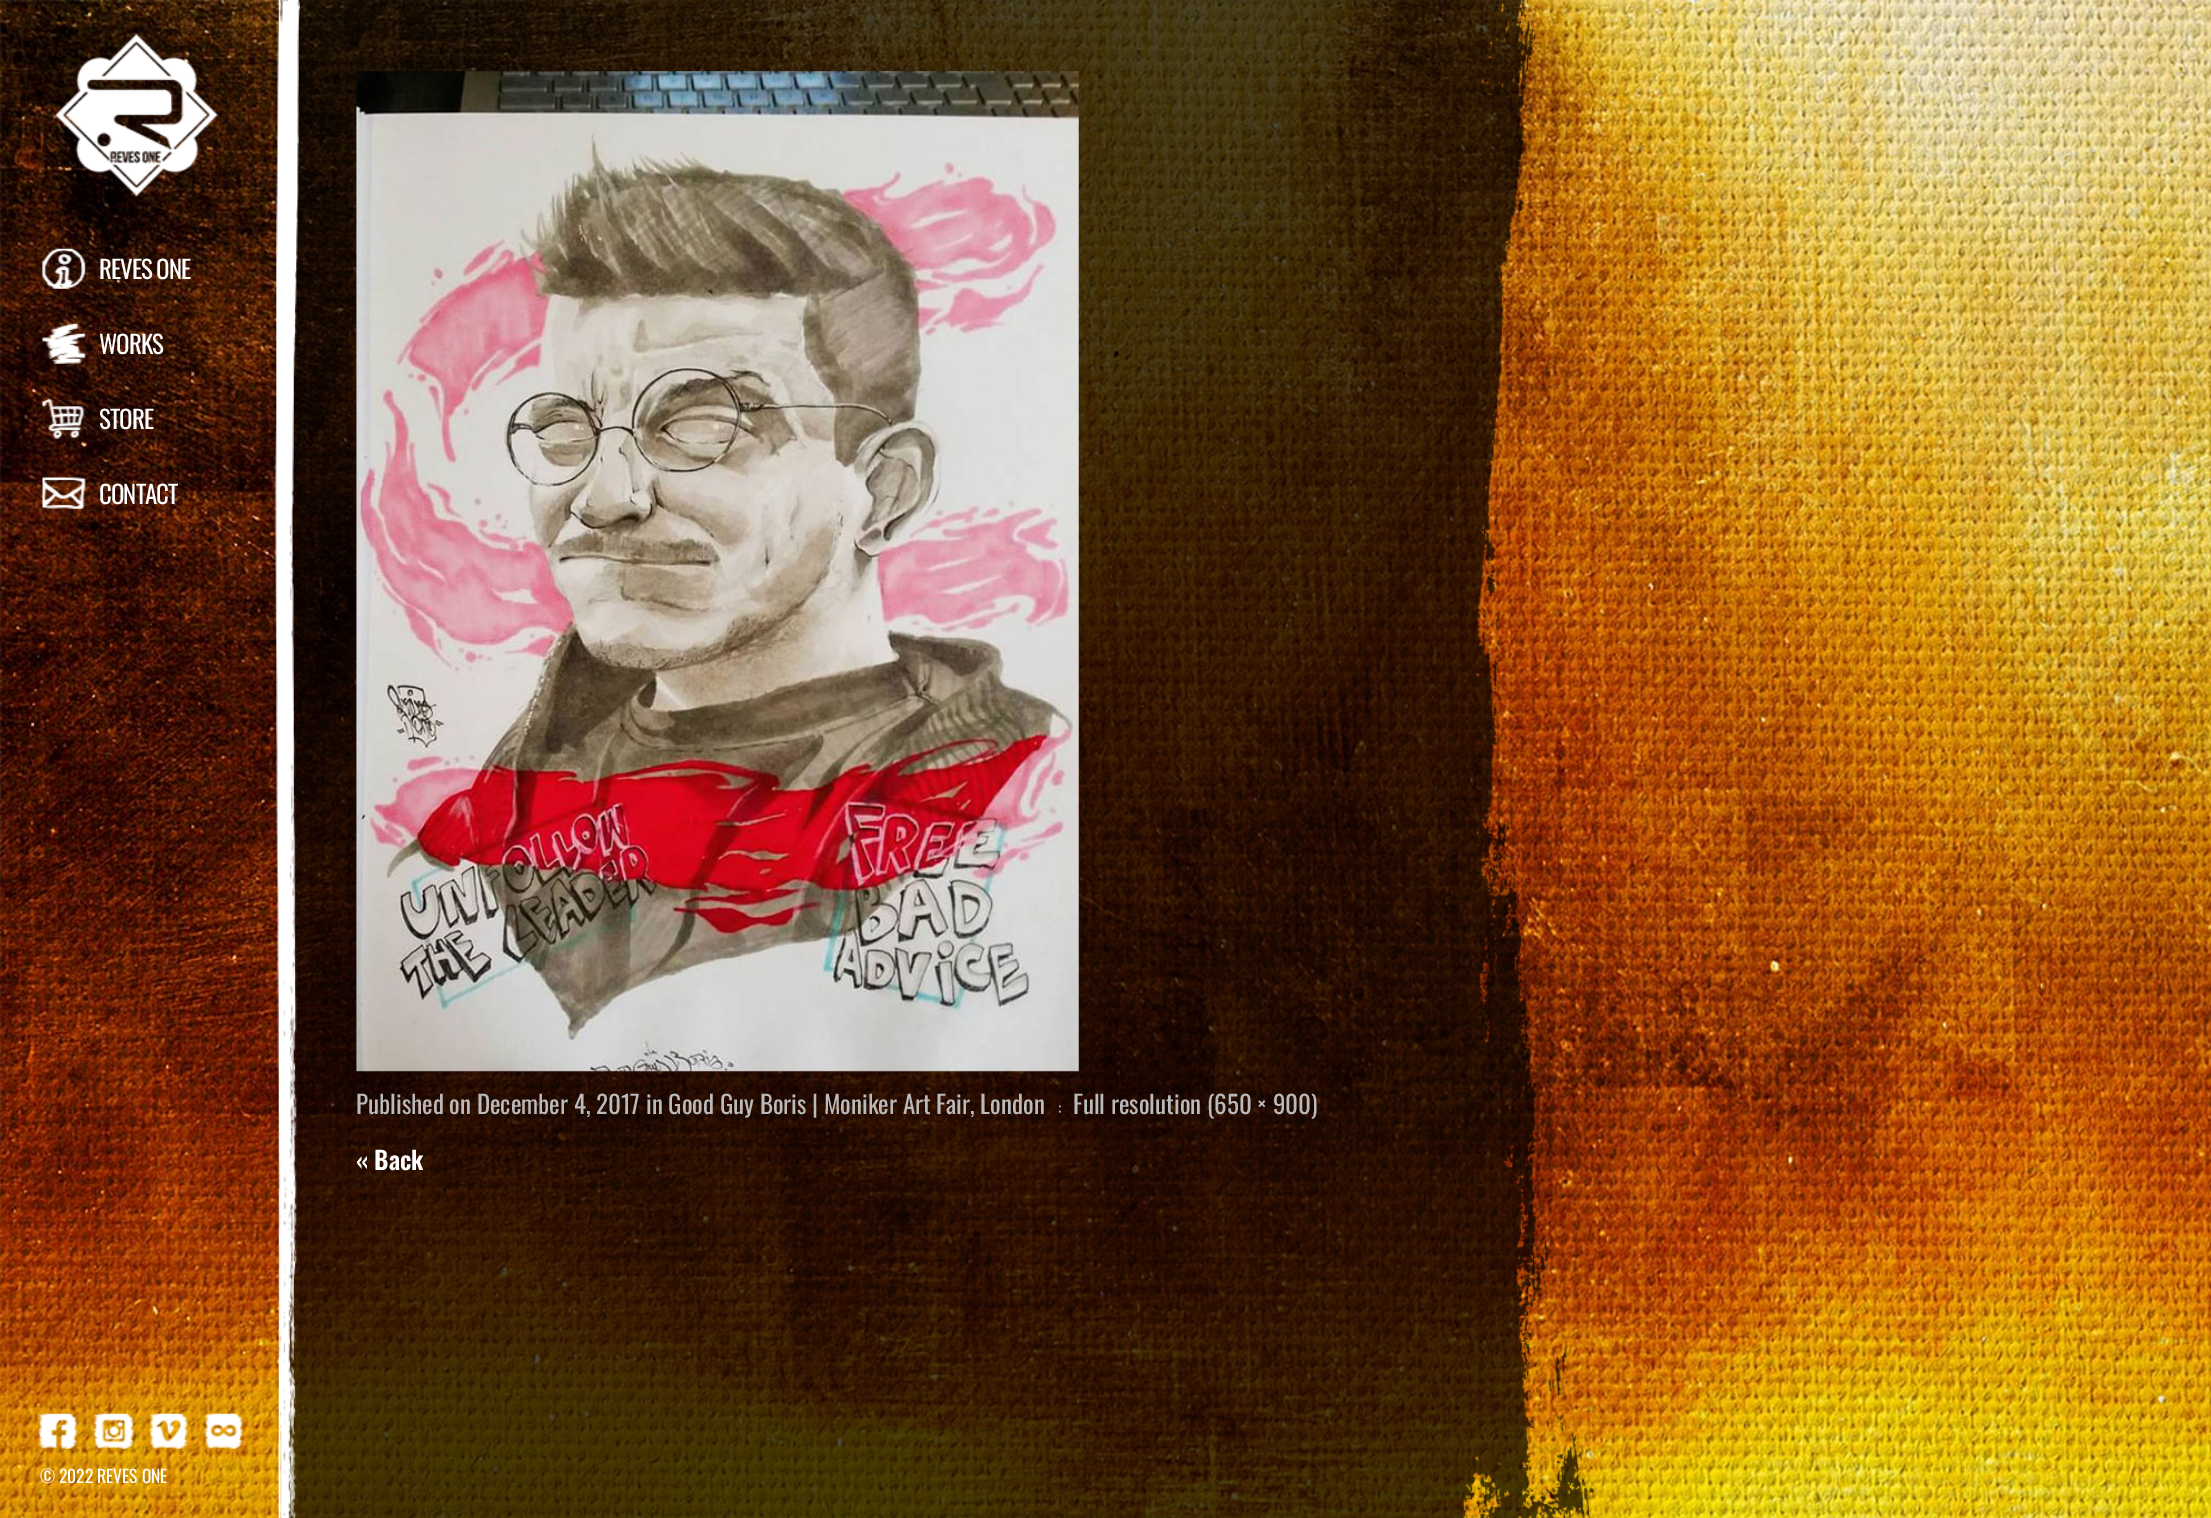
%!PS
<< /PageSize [2211 1518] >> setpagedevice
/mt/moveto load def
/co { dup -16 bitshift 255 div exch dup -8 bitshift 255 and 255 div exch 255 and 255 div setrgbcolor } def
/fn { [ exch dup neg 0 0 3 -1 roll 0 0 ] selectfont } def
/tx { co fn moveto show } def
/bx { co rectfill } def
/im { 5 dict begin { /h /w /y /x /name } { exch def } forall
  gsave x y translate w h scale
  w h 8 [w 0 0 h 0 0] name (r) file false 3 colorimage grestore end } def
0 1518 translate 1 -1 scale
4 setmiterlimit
0 0 2211 1518 16#FFFFFF bx
(media/1.raw) 0 0 2211 1518 im
(media/12.raw) 281 0 1313 1518 im
(media/2.raw) 274 0 26 1518 im
(media/3.raw) 55 33 164 164 im
(media/4.raw) 42 248 44 41 im
(media/5.raw) 42 323 44 41 im
(media/6.raw) 42 398 43 41 im
(media/7.raw) 42 477 44 32 im
(media/8.raw) 38 1413 41 36 im
(media/9.raw) 93 1413 41 36 im
(media/10.raw) 149 1413 39 36 im
(media/11.raw) 204 1413 39 36 im
(media/13.raw) 356 71 723 1001 im
/Oswald-Regular 25 fn
99 279 mt -1 0 (REVES ONE) ashow
99 354 mt -1 0 (WORKS) ashow
99 429 mt -1 0 (STORE) ashow
99 504 mt -1 0 (CONTACT) ashow
(© 2022 REVES ONE) 40 1483 /Oswald-Regular 17.5 16#FFFFFF tx
(Published on December 4, 2017 in Good Guy Boris | Moniker Art Fair, London) 356 1114 /Oswald-Regular 25 16#BABABA tx
(:) 1058 1114 /Oswald-Regular 16 16#BABABA tx
(Full resolution \(650 × 900\)) 1073 1114 /Oswald-Regular 25 16#BABABA tx
(« Back) 356 1170 /Oswald-SemiBold 25 16#FFFFFF tx
showpage
